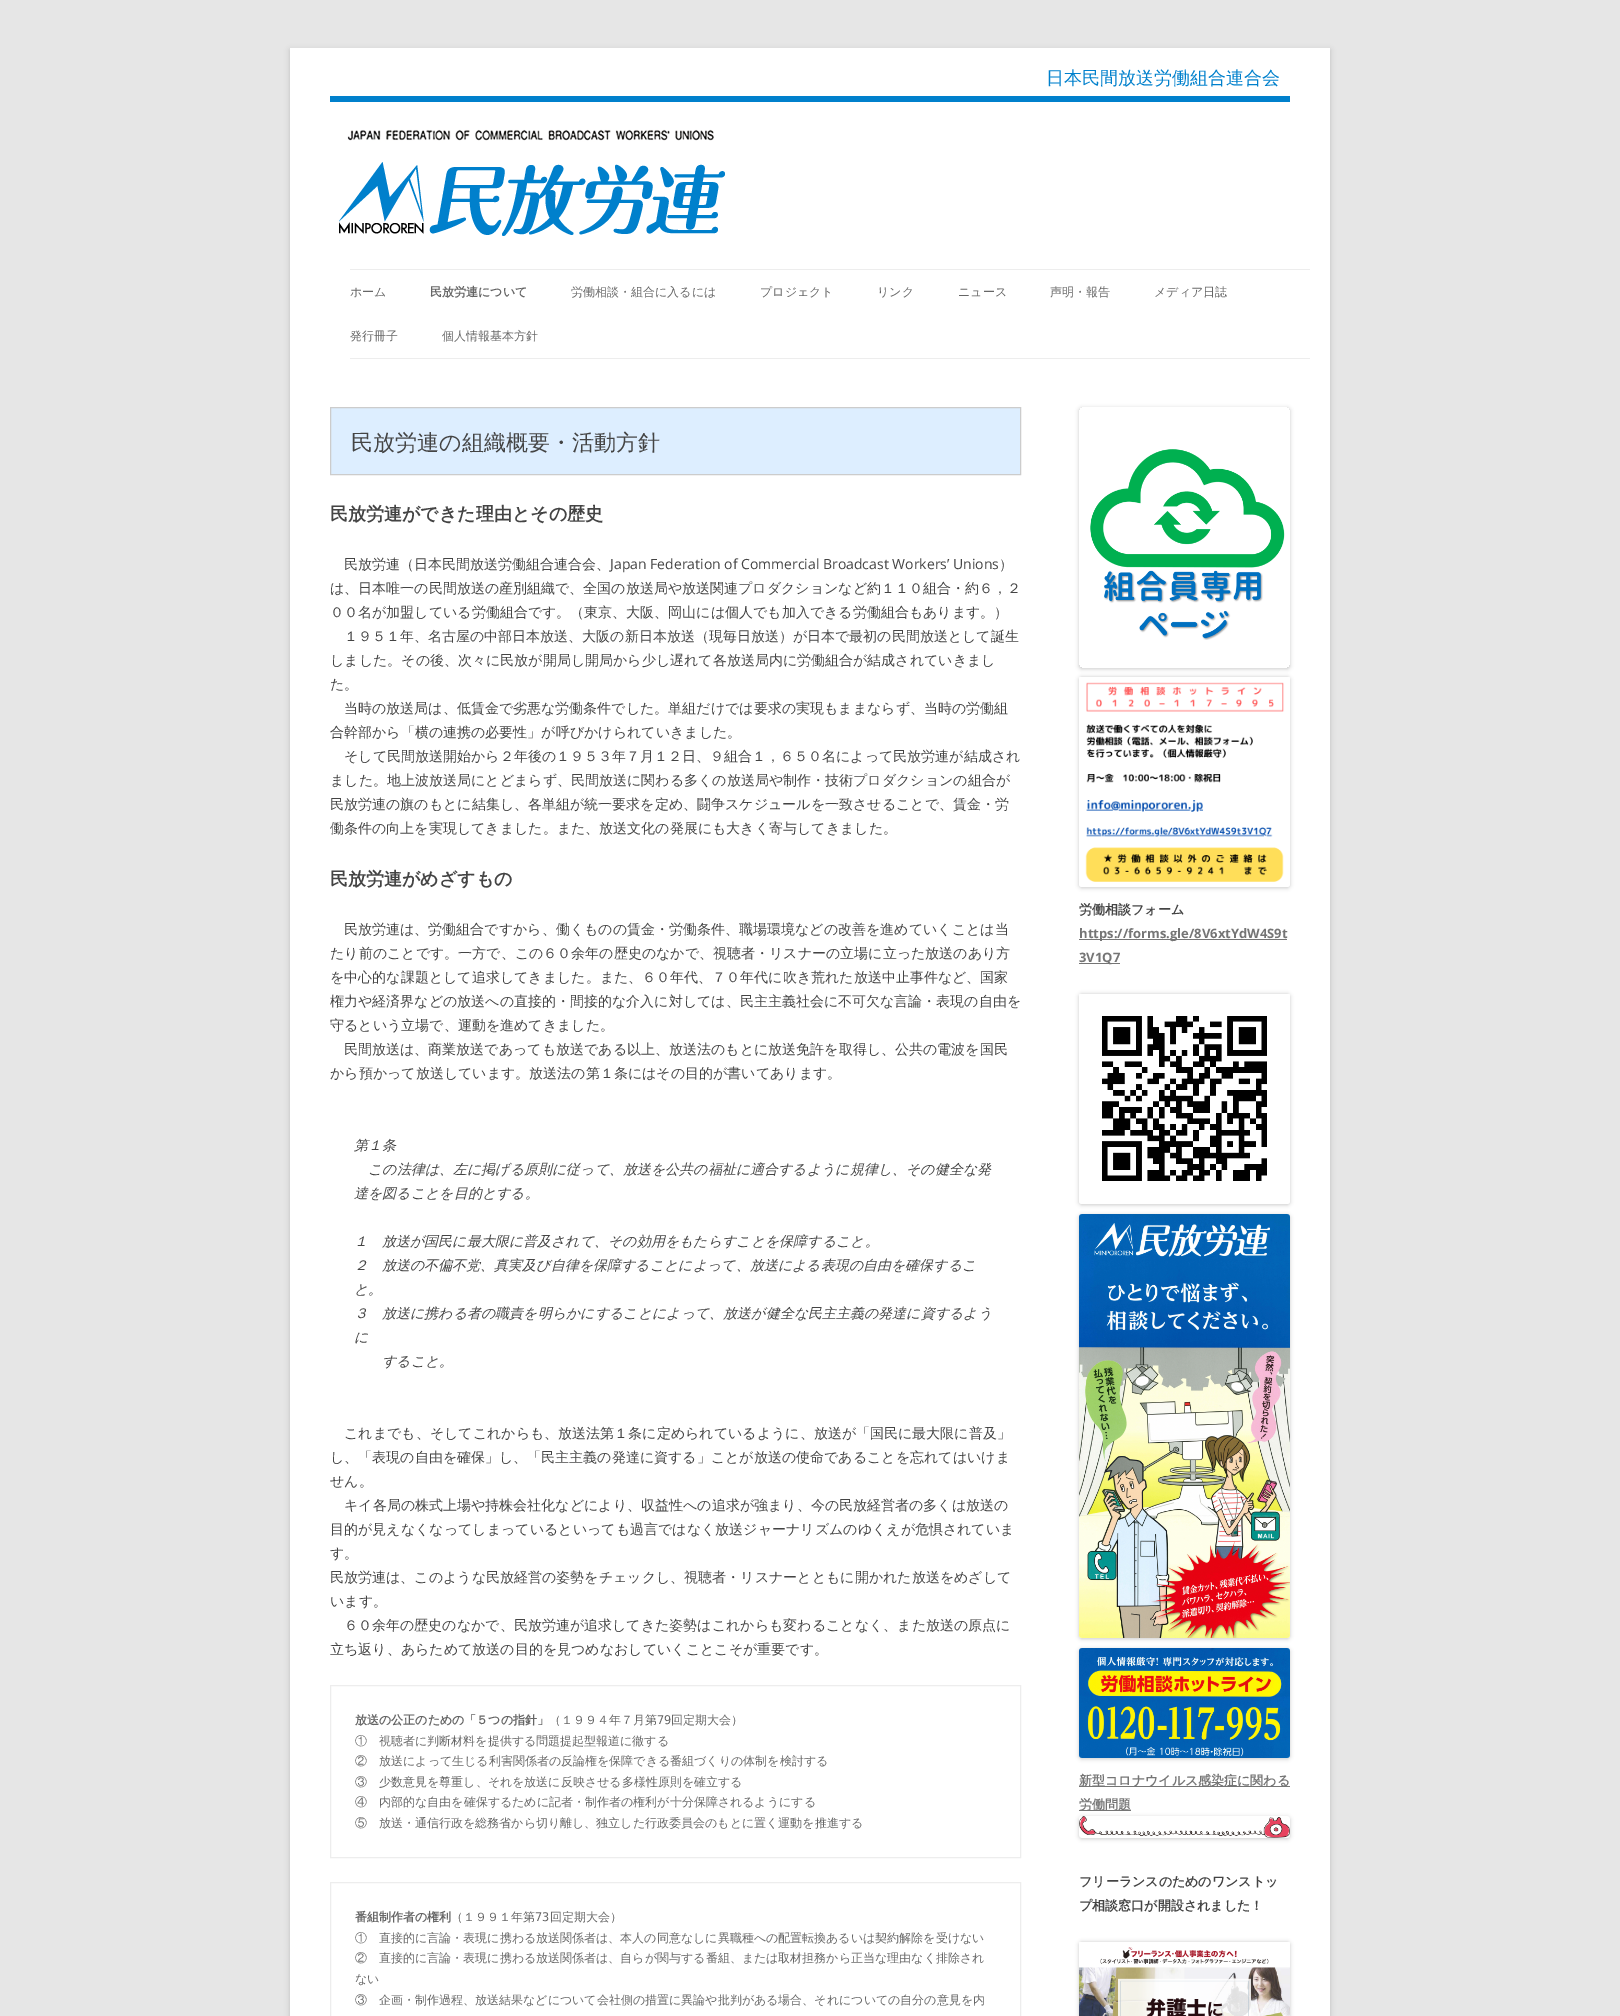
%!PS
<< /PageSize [1620 2016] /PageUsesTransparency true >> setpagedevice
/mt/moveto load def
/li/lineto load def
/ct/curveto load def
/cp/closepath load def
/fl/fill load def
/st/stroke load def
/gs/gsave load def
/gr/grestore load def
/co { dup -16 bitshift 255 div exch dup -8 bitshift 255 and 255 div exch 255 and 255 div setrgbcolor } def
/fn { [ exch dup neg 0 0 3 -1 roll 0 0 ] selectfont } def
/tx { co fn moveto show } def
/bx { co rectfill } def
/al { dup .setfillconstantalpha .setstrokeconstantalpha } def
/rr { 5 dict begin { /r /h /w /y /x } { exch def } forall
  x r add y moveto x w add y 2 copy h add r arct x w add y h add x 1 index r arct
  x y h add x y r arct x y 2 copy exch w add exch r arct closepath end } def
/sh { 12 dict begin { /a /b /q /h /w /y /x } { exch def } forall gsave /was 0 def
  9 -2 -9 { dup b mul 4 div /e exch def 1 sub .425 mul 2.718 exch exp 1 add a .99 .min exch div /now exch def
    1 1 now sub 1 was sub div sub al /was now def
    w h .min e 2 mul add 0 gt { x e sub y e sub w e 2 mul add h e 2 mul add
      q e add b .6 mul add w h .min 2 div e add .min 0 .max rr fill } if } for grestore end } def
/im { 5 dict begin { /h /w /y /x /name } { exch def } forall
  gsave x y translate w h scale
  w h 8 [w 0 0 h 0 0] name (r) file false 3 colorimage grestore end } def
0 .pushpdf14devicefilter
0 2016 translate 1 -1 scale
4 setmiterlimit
0 0 1620 2016 16#E6E6E6 bx
16#646464 co
290 50 1040 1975 0 3 .3 sh
290 48 1040 1968 16#FFFFFF bx
330 96 960 6 16#0080CC bx
(media/1.raw) 339 129 386 107 im
350 269 960 1 16#EDEDED bx
350 358 960 1 16#EDEDED bx
16#DDEEFF co
330.5 407.5 mt 1020.5 407.5 li 1020.5 474.5 li 330.5 474.5 li cp gs fl gr
16#CCCCCC co
st
16#EDEDED co
330.5 1685.5 690 172 rectstroke
330.5 1882.5 690 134 rectstroke
gs
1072 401 mt 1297 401 li 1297 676 li 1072 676 li cp 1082 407 mt 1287 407 li 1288.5 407 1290 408.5 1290 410 ct 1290 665 li 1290 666.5 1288.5 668 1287 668 ct 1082 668 li 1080.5 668 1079 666.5 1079 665 ct 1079 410 li 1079 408.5 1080.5 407 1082 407 ct cp eoclip newpath
16#000000 co
1079 408 211 261 3 2 .2 sh
gr
(media/2.raw) 1090 449 195 191 im
16#000000 co
1079 677 211 211 3 2 .2 sh
(media/3.raw) 1079 677 211 210 im
1079 939 208 1 16#757575 bx
1079 963 41 1 16#757575 bx
16#000000 co
1079 994 211 211 3 2 .2 sh
(media/4.raw) 1079 994 211 210 im
1079 1215 211 424 3 2 .2 sh
(media/5.raw) 1079 1214 211 424 im
1079 1649 211 110 3 2 .2 sh
(media/6.raw) 1079 1648 211 110 im
1079 1786 211 1 16#757575 bx
1079 1810 52 1 16#757575 bx
gs
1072 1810 mt 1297 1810 li 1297 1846 li 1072 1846 li cp 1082 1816 mt 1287 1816 li 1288.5 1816 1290 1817.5 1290 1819 ct 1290 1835 li 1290 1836.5 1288.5 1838 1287 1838 ct 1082 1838 li 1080.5 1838 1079 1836.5 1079 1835 ct 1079 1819 li 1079 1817.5 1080.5 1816 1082 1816 ct cp eoclip newpath
16#000000 co
1079 1817 211 22 3 2 .2 sh
gr
(media/7.raw) 1079 1816 211 22 im
16#000000 co
1079 1942 211 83 3 2 .2 sh
(media/8.raw) 1079 1942 211 74 im
(日本民間放送労働組合連合会) 1046 84 /WenQuanYiZenHei-Medium 18 16#0080CC tx
(ホーム) 350 296 /WenQuanYiZenHei-Medium 12 16#666666 tx
(民放労連について) 430 296 /WenQuanYiZenHei-Bold 12 16#666666 tx
(労働相談・組合に入るには) 571 296 /WenQuanYiZenHei-Medium 12 16#666666 tx
(プロジェクト) 760 296 /WenQuanYiZenHei-Medium 12 16#666666 tx
(リンク) 877 296 /WenQuanYiZenHei-Medium 12 16#666666 tx
(ニュース) 958 296 /WenQuanYiZenHei-Medium 12 16#666666 tx
(声明・報告) 1050 296 /WenQuanYiZenHei-Medium 12 16#666666 tx
(メディア日誌) 1154 296 /WenQuanYiZenHei-Medium 12 16#666666 tx
(発行冊子) 350 340 /WenQuanYiZenHei-Medium 12 16#666666 tx
(個人情報基本方針) 442 340 /WenQuanYiZenHei-Medium 12 16#666666 tx
(民放労連の組織概要・活動方針) 351 450 /WenQuanYiZenHei-Medium 22 16#444444 tx
(民放労連ができた理由とその歴史) 330 520 /WenQuanYiZenHei-Bold 18 16#444444 tx
(民放労連（日本民間放送労働組合連合会、) 344 569 /WenQuanYiZenHei-Medium 14 16#444444 tx
(Japan Federation of Commercial Broadcast Workers’ Unions) 610 569 /OpenSans-Regular 14 16#444444 tx
(）) 999 569 /WenQuanYiZenHei-Medium 14 16#444444 tx
(は、日本唯一の民間放送の産別組織で、全国の放送局や放送関連プロダクションなど約１１０組合・約６，２) 330 593 /WenQuanYiZenHei-Medium 14 16#444444 tx
(００名が加盟している労働組合です。（東京、大阪、岡山には個人でも加入できる労働組合もあります。）) 330 617 /WenQuanYiZenHei-Medium 14 16#444444 tx
(１９５１年、名古屋の中部日本放送、大阪の新日本放送（現毎日放送）が日本で最初の民間放送として誕生) 344 641 /WenQuanYiZenHei-Medium 14 16#444444 tx
(しました。その後、次々に民放が開局し開局から少し遅れて各放送局内に労働組合が結成されていきまし) 330 665 /WenQuanYiZenHei-Medium 14 16#444444 tx
(た。) 330 689 /WenQuanYiZenHei-Medium 14 16#444444 tx
(当時の放送局は、低賃金で劣悪な労働条件でした。単組だけでは要求の実現もままならず、当時の労働組) 344 713 /WenQuanYiZenHei-Medium 14 16#444444 tx
(合幹部から「横の連携の必要性」が呼びかけられていきました。) 330 737 /WenQuanYiZenHei-Medium 14 16#444444 tx
(そして民間放送開始から２年後の１９５３年７月１２日、９組合１，６５０名によって民放労連が結成され) 344 761 /WenQuanYiZenHei-Medium 14 16#444444 tx
(ました。地上波放送局にとどまらず、民間放送に関わる多くの放送局や制作・技術プロダクションの組合が) 330 785 /WenQuanYiZenHei-Medium 14 16#444444 tx
(民放労連の旗のもとに結集し、各単組が統一要求を定め、闘争スケジュールを一致させることで、賃金・労) 330 809 /WenQuanYiZenHei-Medium 14 16#444444 tx
(働条件の向上を実現してきました。また、放送文化の発展にも大きく寄与してきました。) 330 833 /WenQuanYiZenHei-Medium 14 16#444444 tx
(民放労連がめざすもの) 330 885 /WenQuanYiZenHei-Bold 18 16#444444 tx
(民放労連は、労働組合ですから、働くものの賃金・労働条件、職場環境などの改善を進めていくことは当) 344 934 /WenQuanYiZenHei-Medium 14 16#444444 tx
(たり前のことです。一方で、この６０余年の歴史のなかで、視聴者・リスナーの立場に立った放送のあり方) 330 958 /WenQuanYiZenHei-Medium 14 16#444444 tx
(を中心的な課題として追求してきました。また、６０年代、７０年代に吹き荒れた放送中止事件など、国家) 330 982 /WenQuanYiZenHei-Medium 14 16#444444 tx
(権力や経済界などの放送への直接的・間接的な介入に対しては、民主主義社会に不可欠な言論・表現の自由を) 330 1006 /WenQuanYiZenHei-Medium 14 16#444444 tx
(守るという立場で、運動を進めてきました。) 330 1030 /WenQuanYiZenHei-Medium 14 16#444444 tx
(民間放送は、商業放送であっても放送である以上、放送法のもとに放送免許を取得し、公共の電波を国民) 344 1054 /WenQuanYiZenHei-Medium 14 16#444444 tx
(から預かって放送しています。放送法の第１条にはその目的が書いてあります。) 330 1078 /WenQuanYiZenHei-Medium 14 16#444444 tx
(第１条) 354 1150 /WenQuanYiZenHei-MediumItalic 14 16#444444 tx
(この法律は、左に掲げる原則に従って、放送を公共の福祉に適合するように規律し、その健全な発) 368 1174 /WenQuanYiZenHei-MediumItalic 14 16#444444 tx
(達を図ることを目的とする。) 354 1198 /WenQuanYiZenHei-MediumItalic 14 16#444444 tx
(１　放送が国民に最大限に普及されて、その効用をもたらすことを保障すること。) 354 1246 /WenQuanYiZenHei-MediumItalic 14 16#444444 tx
(２　放送の不偏不党、真実及び自律を保障することによって、放送による表現の自由を確保するこ) 354 1270 /WenQuanYiZenHei-MediumItalic 14 16#444444 tx
(と。) 354 1294 /WenQuanYiZenHei-MediumItalic 14 16#444444 tx
(３　放送に携わる者の職責を明らかにすることによって、放送が健全な民主主義の発達に資するよう) 354 1318 /WenQuanYiZenHei-MediumItalic 14 16#444444 tx
(に) 354 1342 /WenQuanYiZenHei-MediumItalic 14 16#444444 tx
(すること。) 382 1366 /WenQuanYiZenHei-MediumItalic 14 16#444444 tx
(これまでも、そしてこれからも、放送法第１条に定められているように、放送が「国民に最大限に普及」) 344 1438 /WenQuanYiZenHei-Medium 14 16#444444 tx
(し、「表現の自由を確保」し、「民主主義の発達に資する」ことが放送の使命であることを忘れてはいけま) 330 1462 /WenQuanYiZenHei-Medium 14 16#444444 tx
(せん。) 330 1486 /WenQuanYiZenHei-Medium 14 16#444444 tx
(キイ各局の株式上場や持株会社化などにより、収益性への追求が強まり、今の民放経営者の多くは放送の) 344 1510 /WenQuanYiZenHei-Medium 14 16#444444 tx
(目的が見えなくなってしまっているといっても過言ではなく放送ジャーナリズムのゆくえが危惧されていま) 330 1534 /WenQuanYiZenHei-Medium 14 16#444444 tx
(す。) 330 1558 /WenQuanYiZenHei-Medium 14 16#444444 tx
(民放労連は、このような民放経営の姿勢をチェックし、視聴者・リスナーとともに開かれた放送をめざして) 330 1582 /WenQuanYiZenHei-Medium 14 16#444444 tx
(います。) 330 1606 /WenQuanYiZenHei-Medium 14 16#444444 tx
(６０余年の歴史のなかで、民放労連が追求してきた姿勢はこれからも変わることなく、また放送の原点に) 344 1630 /WenQuanYiZenHei-Medium 14 16#444444 tx
(立ち返り、あらためて放送の目的を見つめなおしていくことこそが重要です。) 330 1654 /WenQuanYiZenHei-Medium 14 16#444444 tx
(放送の公正のための「５つの指針」) 355 1724 /WenQuanYiZenHei-Bold 12 16#666666 tx
(（１９９４年７月第) 549 1724 /WenQuanYiZenHei-Medium 12 16#666666 tx
(79) 657 1724 /DejaVuSansMono-Regular 12 16#666666 tx
(回定期大会）) 671 1724 /WenQuanYiZenHei-Medium 12 16#666666 tx
(①　視聴者に判断材料を提供する問題提起型報道に徹する) 355 1745 /WenQuanYiZenHei-Medium 12 16#666666 tx
(②　放送によって生じる利害関係者の反論権を保障できる番組づくりの体制を検討する) 355 1765 /WenQuanYiZenHei-Medium 12 16#666666 tx
(③　少数意見を尊重し、それを放送に反映させる多様性原則を確立する) 355 1786 /WenQuanYiZenHei-Medium 12 16#666666 tx
(④　内部的な自由を確保するために記者・制作者の権利が十分保障されるようにする) 355 1806 /WenQuanYiZenHei-Medium 12 16#666666 tx
(⑤　放送・通信行政を総務省から切り離し、独立した行政委員会のもとに置く運動を推進する) 355 1827 /WenQuanYiZenHei-Medium 12 16#666666 tx
(番組制作者の権利) 355 1921 /WenQuanYiZenHei-Bold 12 16#666666 tx
(（１９９１年第) 451 1921 /WenQuanYiZenHei-Medium 12 16#666666 tx
(73) 535 1921 /DejaVuSansMono-Regular 12 16#666666 tx
(回定期大会）) 550 1921 /WenQuanYiZenHei-Medium 12 16#666666 tx
(①　直接的に言論・表現に携わる放送関係者は、本人の同意なしに異職種への配置転換あるいは契約解除を受けない) 355 1942 /WenQuanYiZenHei-Medium 12 16#666666 tx
(②　直接的に言論・表現に携わる放送関係者は、自らが関与する番組、または取材担務から正当な理由なく排除され) 355 1962 /WenQuanYiZenHei-Medium 12 16#666666 tx
(ない) 355 1983 /WenQuanYiZenHei-Medium 12 16#666666 tx
(③　企画・制作過程、放送結果などについて会社側の措置に異論や批判がある場合、それについての自分の意見を内) 355 2004 /WenQuanYiZenHei-Medium 12 16#666666 tx
(労働相談フォーム) 1079 914 /WenQuanYiZenHei-Bold 13 16#444444 tx
(https://forms.gle/8V6xtYdW4S9t) 1079 938 /OpenSans-Bold 13 16#757575 tx
(3V1Q7) 1079 962 /OpenSans-Bold 13 16#757575 tx
(新型コロナウイルス感染症に関わる) 1079 1785 /WenQuanYiZenHei-Bold 13 16#757575 tx
(労働問題) 1079 1809 /WenQuanYiZenHei-Bold 13 16#757575 tx
(フリーランスのためのワンストッ) 1079 1886 /WenQuanYiZenHei-Bold 13 16#444444 tx
(プ相談窓口が開設されました！) 1079 1910 /WenQuanYiZenHei-Bold 13 16#444444 tx
.poppdf14devicefilter showpage
